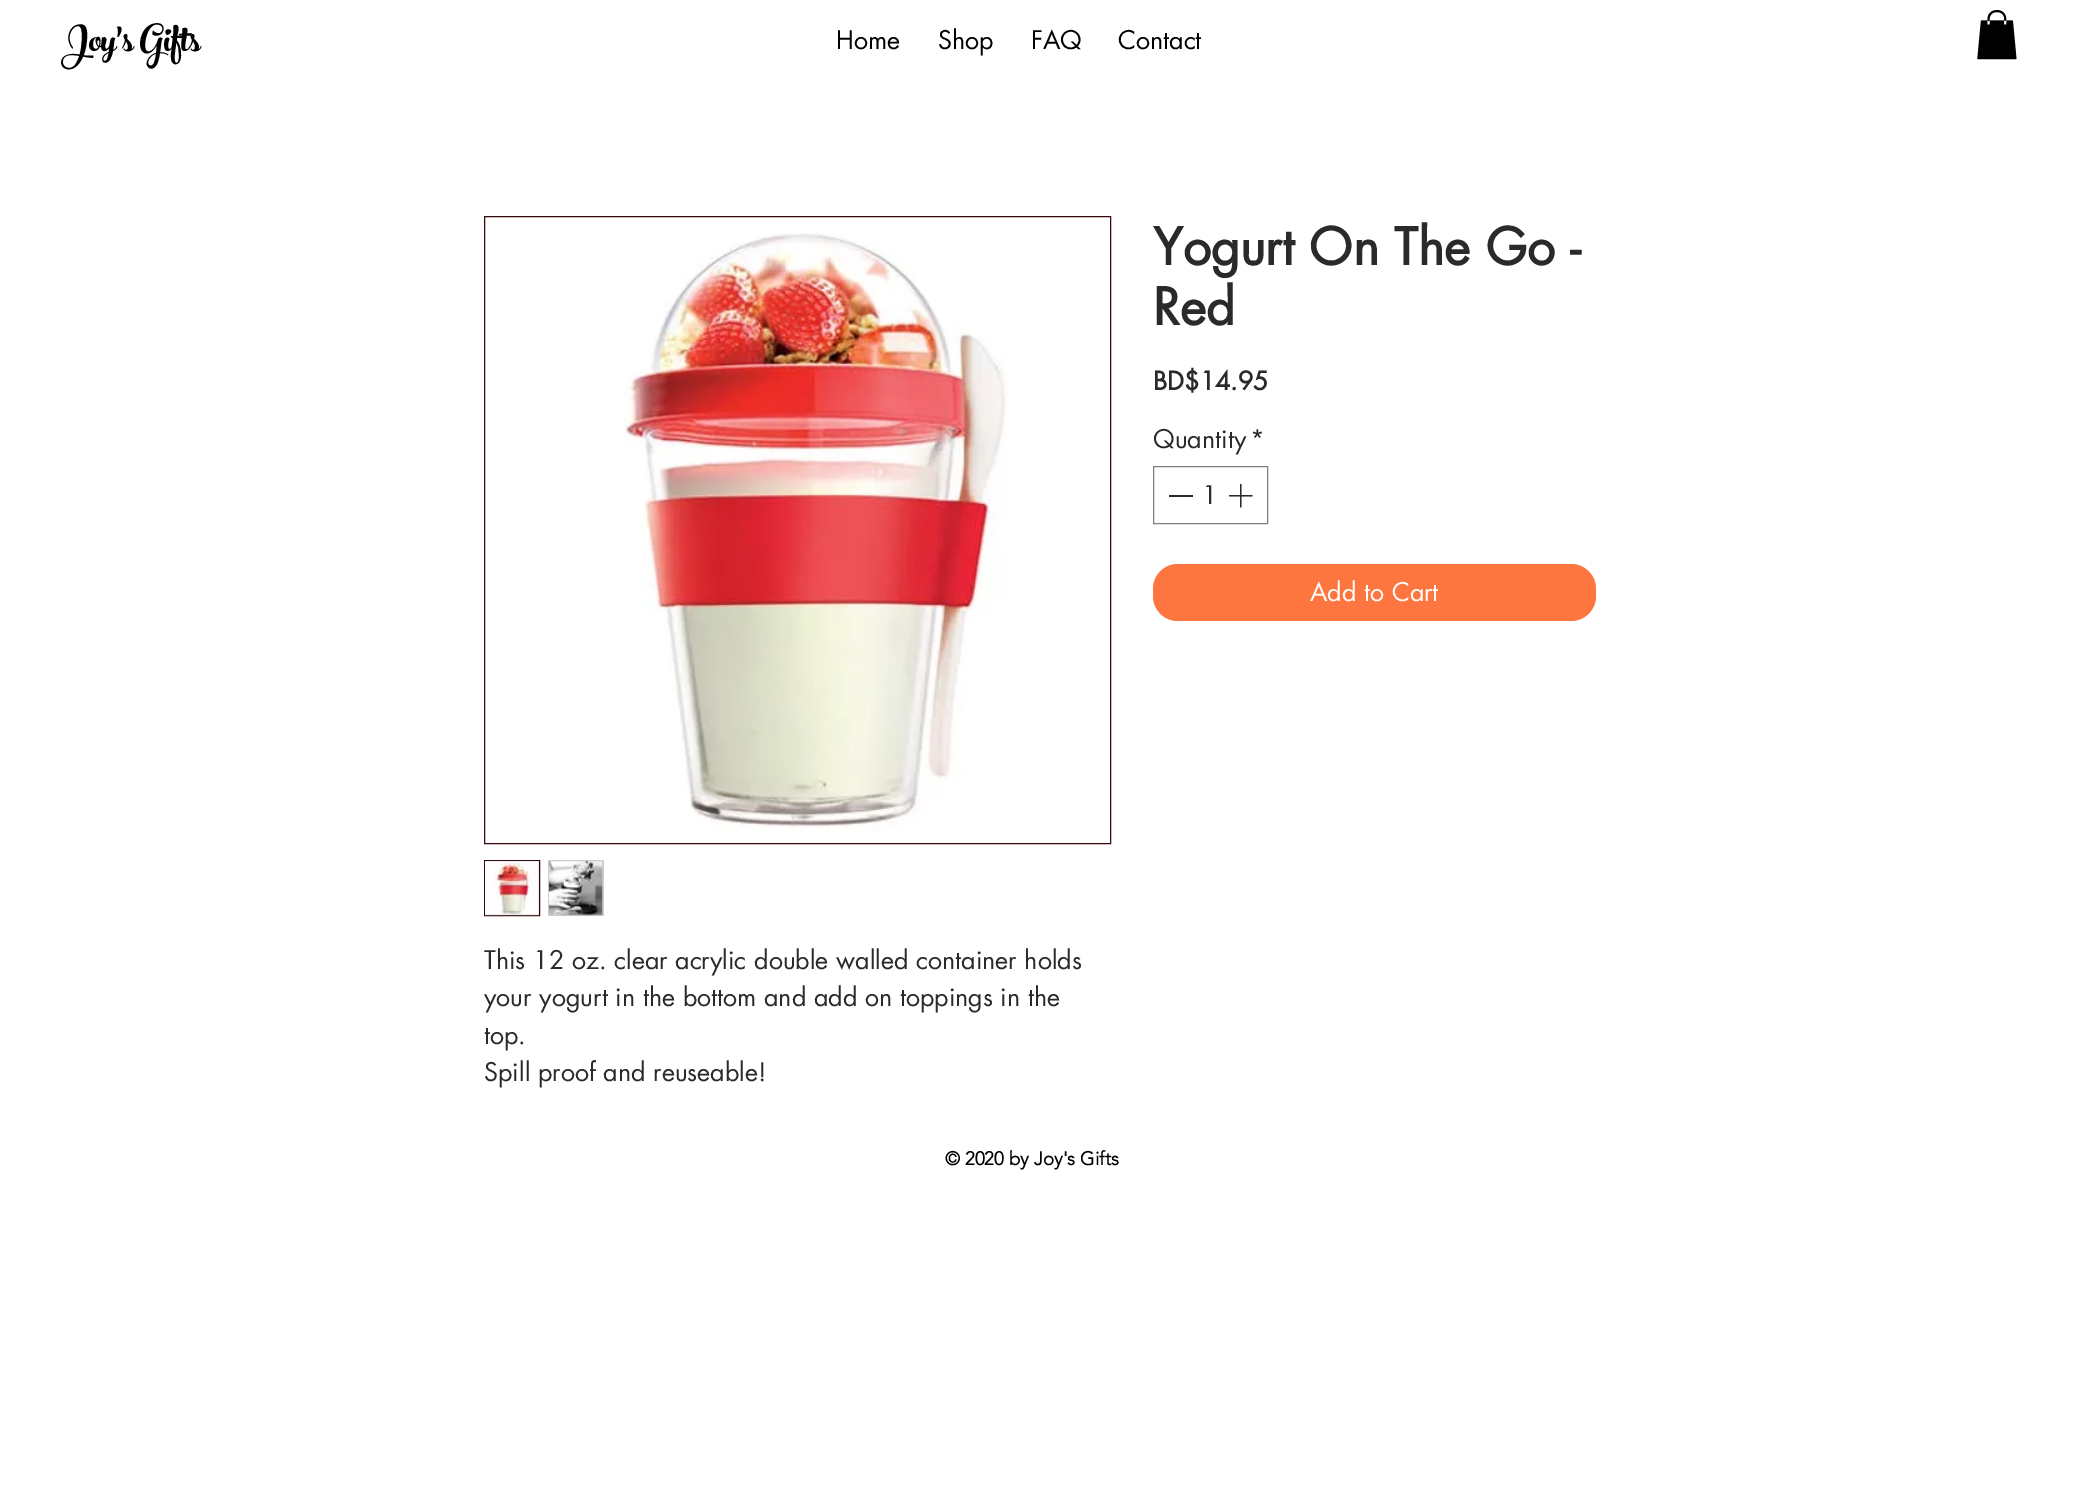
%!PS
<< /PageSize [2080 1489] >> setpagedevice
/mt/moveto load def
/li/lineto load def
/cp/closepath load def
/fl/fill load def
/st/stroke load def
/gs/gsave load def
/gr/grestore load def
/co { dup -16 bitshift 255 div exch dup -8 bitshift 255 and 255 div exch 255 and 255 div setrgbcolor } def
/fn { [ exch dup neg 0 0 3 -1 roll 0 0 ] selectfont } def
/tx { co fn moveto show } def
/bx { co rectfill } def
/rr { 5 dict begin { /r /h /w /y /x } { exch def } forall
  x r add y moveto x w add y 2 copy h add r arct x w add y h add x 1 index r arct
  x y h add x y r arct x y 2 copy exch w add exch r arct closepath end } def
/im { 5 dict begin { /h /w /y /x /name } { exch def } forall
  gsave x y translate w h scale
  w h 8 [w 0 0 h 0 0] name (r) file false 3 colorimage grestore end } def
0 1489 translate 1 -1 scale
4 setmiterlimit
0 0 2080 1489 16#FFFFFF bx
(media/1.raw) 1977 10 40 50 im
16#7F7F7F co
1153.5 466.5 114 57 rectstroke
1169 495 24 2 16#2A2A2A bx
(media/2.raw) 1229 484 24 24 im
16#FD763F co
1153 564 443 57 25 rr fl
16#350A0C co
484.5 216.5 626 627 rectstroke
(media/3.raw) 624 233 383 599 im
16#CCCCCC co
484.5 860.5 mt 539.5 860.5 li 539.5 915.5 li 484.5 915.5 li cp gs fl gr
16#350A0C co
st
(media/4.raw) 485 861 54 55 im
548 860 56 56 16#CCCCCC bx
(media/5.raw) 548 861 55 55 im
(Joy's Gifts) 61 51 /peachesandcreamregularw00-Regular 55 16#000000 tx
(Home) 836 49 /futura-Regular 25 16#000000 tx
(Shop) 938 49 /futura-Regular 25 16#000000 tx
(FAQ) 1031 49 /futura-Regular 25 16#000000 tx
(Contact) 1118 49 /futura-Regular 25 16#000000 tx
(Yogurt On The Go -) 1153 265 /futura-Bold 50 16#2A2A2A tx
(Red) 1153 325 /futura-Bold 50 16#2A2A2A tx
(BD$14.95) 1153 390 /futura-Bold 25 16#2A2A2A tx
(Quantity) 1153 448 /futura-Regular 25 16#2A2A2A tx
(*) 1250 448 /futura-Regular 25 16#2A2A2A tx
(1) 1202 504 /futura-Regular 25 16#2A2A2A tx
(Add to Cart) 1310 601 /futura-Regular 25 16#FFFFFF tx
(This 12 oz. clear acrylic double walled container holds) 484 969 /futura-Regular 25 16#2A2A2A tx
(your yogurt in the bottom and add on toppings in the) 484 1006 /futura-Regular 25 16#2A2A2A tx
(top.) 484 1044 /futura-Regular 25 16#2A2A2A tx
(Spill proof and reuseable!) 484 1081 /futura-Regular 25 16#2A2A2A tx
(© 2020 by Joy's Gifts) 945 1165 /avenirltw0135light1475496-Bold 18.75 16#000000 tx
showpage
